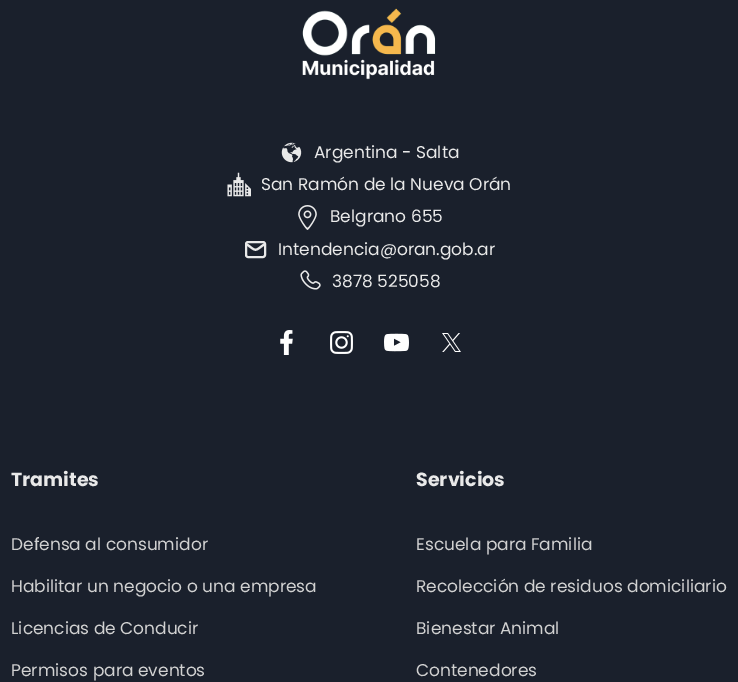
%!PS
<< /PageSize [738 682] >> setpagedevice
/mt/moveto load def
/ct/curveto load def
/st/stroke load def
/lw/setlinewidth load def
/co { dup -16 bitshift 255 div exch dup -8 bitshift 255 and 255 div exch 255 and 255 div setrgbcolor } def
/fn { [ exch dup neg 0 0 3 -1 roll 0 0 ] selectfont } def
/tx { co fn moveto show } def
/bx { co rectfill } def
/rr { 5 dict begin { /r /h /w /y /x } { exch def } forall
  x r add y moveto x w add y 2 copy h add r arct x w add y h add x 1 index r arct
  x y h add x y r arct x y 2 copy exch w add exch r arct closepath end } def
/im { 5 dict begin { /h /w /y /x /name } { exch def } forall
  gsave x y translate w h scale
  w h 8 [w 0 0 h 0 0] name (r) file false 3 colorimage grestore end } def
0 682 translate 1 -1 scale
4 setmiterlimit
0 0 738 682 16#1A202C bx
(media/1.raw) 302 8 134 72 im
(media/2.raw) 281 142 21 21 im
(media/3.raw) 227 172 24 25 im
(media/4.raw) 298 205 19 25 im
16#E9E9E9 co
2.1 lw
1 setlinecap
1 setlinejoin
247 244.5 mt 256.5 251.5 254.5 251.5 264 244.5 ct st
2 lw
0 setlinecap
0 setlinejoin
246 242 19 15 2 rr st
(media/5.raw) 300 270 21 20 im
(media/6.raw) 280 330 13 25 im
(media/7.raw) 330 331 23 23 im
(media/8.raw) 384 333 25 19 im
(media/9.raw) 442 333 19 19 im
(Argentina - Salta) 314 158 /Poppins-Regular 17 16#E9E9E9 tx
(San Ramón de la Nueva Orán) 261 190 /Poppins-Regular 17 16#E9E9E9 tx
(Belgrano 655) 330 222 /Poppins-Regular 17 16#E9E9E9 tx
(Intendencia@oran.gob.ar) 278 255 /Poppins-Regular 17 16#E9E9E9 tx
(3878 525058) 332 287 /Poppins-Regular 17 16#E9E9E9 tx
(Tramites) 11 486 /Poppins-Bold 19 16#E9E9E9 tx
(Defensa al consumidor) 11 550 /Poppins-Regular 17 16#D1D1D1 tx
(Habilitar un negocio o una empresa) 11 592 /Poppins-Regular 17 16#D1D1D1 tx
(Licencias de Conducir) 11 634 /Poppins-Regular 17 16#D1D1D1 tx
(Permisos para eventos) 11 676 /Poppins-Regular 17 16#D1D1D1 tx
(Servicios) 416 486 /Poppins-Bold 19 16#E9E9E9 tx
(Escuela para Familia) 416 550 /Poppins-Regular 17 16#D1D1D1 tx
(Recolección de residuos domiciliario) 416 592 /Poppins-Regular 17 16#D1D1D1 tx
(Bienestar Animal) 416 634 /Poppins-Regular 17 16#D1D1D1 tx
(Contenedores) 416 676 /Poppins-Regular 17 16#D1D1D1 tx
showpage
